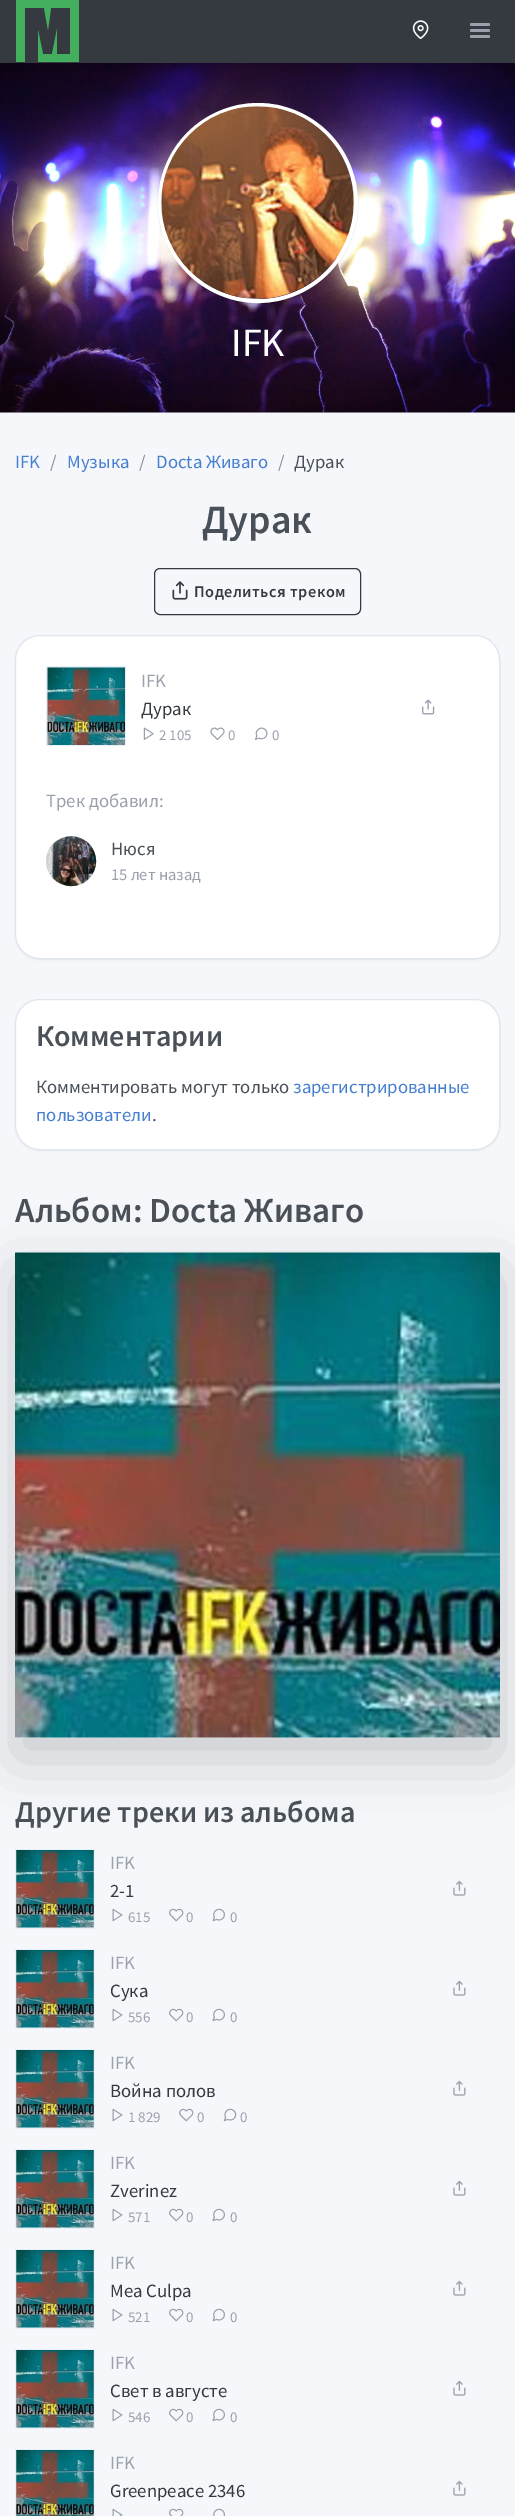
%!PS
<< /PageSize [515 2516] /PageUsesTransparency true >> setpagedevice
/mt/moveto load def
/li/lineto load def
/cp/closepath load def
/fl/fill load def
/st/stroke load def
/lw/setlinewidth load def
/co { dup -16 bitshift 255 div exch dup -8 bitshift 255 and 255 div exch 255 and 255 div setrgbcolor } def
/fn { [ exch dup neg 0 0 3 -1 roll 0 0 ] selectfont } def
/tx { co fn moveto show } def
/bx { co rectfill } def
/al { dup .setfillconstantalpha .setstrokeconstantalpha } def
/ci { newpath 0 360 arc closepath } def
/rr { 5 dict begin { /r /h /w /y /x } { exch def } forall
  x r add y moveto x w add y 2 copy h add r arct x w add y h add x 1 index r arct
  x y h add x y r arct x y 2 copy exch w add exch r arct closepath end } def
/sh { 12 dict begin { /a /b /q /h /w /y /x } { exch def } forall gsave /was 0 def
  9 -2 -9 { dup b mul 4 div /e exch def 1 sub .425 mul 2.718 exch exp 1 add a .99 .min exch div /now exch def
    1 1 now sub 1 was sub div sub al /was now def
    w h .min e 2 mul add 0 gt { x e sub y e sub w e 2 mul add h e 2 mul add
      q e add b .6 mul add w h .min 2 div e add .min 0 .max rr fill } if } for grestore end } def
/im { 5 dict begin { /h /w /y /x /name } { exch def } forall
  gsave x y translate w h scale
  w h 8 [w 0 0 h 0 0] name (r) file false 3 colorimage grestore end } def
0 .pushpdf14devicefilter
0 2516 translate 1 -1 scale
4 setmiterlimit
0 0 515 2516 16#F5F7FB bx
0 0 515 63 16#343A40 bx
16#43AE5E co
16 0 mt 79 0 li 79 62 li 38 62 li 38 30 li 43 54 li 52 54 li 57 29 li 57 54 li 70 54 li 70 8 li 51 8 li 48 30 li 44 8 li 25 8 li 25 62 li 16 62 li cp fl
(media/1.raw) 412 20 17 19 im
16#9AA0AC co
470 23 20 3 1.5 rr fl
470 35 20 3 1.5 rr fl
470 29 20 3 1.5 rr fl
(media/2.raw) 0 63 515 350 im
16#000000 co
158 104 200 200 100 .5 .1 sh
16#FFFFFF co
4 lw
258 203 98 ci st
(media/3.raw) 161 106 193 193 im
16#343A40 co
1 lw
154.5 568.5 206 46 5.5 rr st
(media/4.raw) 172 581 16 19 im
16#000000 co
15 636 485 324 25 1 .05 sh
16#FFFFFF co
15 635 485 324 25 rr fl
0.12 al
16#002864 co
15.5 635.5 484 323 24.5 rr st
1 al
46 666 80 80 16#E6EFF5 bx
(media/5.raw) 47 667 78 78 im
(media/6.raw) 143 727 11 13 im
(media/7.raw) 210 727 15 14 im
(media/8.raw) 255 727 13 13 im
(media/9.raw) 422 699 13 16 im
16#CED4DA co
71 861 25 ci fl
(media/10.raw) 46 836 51 51 im
16#000000 co
15 1000 485 151 25 1 .05 sh
16#FFFFFF co
15 999 485 151 25 rr fl
0.12 al
16#002864 co
15.5 999.5 484 150 24.5 rr st
1 al
16#000000 co
15 1273 485 485 0 30 .18 sh
(media/11.raw) 15 1252 485 486 im
15 1849 80 80 16#E6EFF5 bx
(media/12.raw) 16 1850 78 78 im
(media/13.raw) 112 1908 11 14 im
(media/14.raw) 169 1908 15 14 im
(media/15.raw) 212 1908 13 14 im
(media/16.raw) 453 1880 13 16 im
15 1949 80 80 16#E6EFF5 bx
(media/12.raw) 16 1950 78 78 im
(media/13.raw) 112 2008 11 14 im
(media/14.raw) 169 2008 15 14 im
(media/15.raw) 212 2008 13 14 im
(media/16.raw) 453 1980 13 16 im
15 2049 80 80 16#E6EFF5 bx
(media/12.raw) 16 2050 78 78 im
(media/13.raw) 112 2108 11 14 im
(media/14.raw) 179 2108 15 14 im
(media/17.raw) 223 2108 14 14 im
(media/16.raw) 453 2080 13 16 im
15 2149 80 80 16#E6EFF5 bx
(media/12.raw) 16 2150 78 78 im
(media/13.raw) 112 2208 11 14 im
(media/14.raw) 169 2208 15 14 im
(media/15.raw) 212 2208 13 14 im
(media/16.raw) 453 2180 13 16 im
15 2249 80 80 16#E6EFF5 bx
(media/12.raw) 16 2250 78 78 im
(media/13.raw) 112 2308 11 14 im
(media/14.raw) 169 2308 15 14 im
(media/15.raw) 212 2308 13 14 im
(media/16.raw) 453 2280 13 16 im
15 2349 80 80 16#E6EFF5 bx
(media/12.raw) 16 2350 78 78 im
(media/13.raw) 112 2408 11 14 im
(media/14.raw) 169 2408 15 14 im
(media/15.raw) 212 2408 13 14 im
(media/16.raw) 453 2380 13 16 im
15 2449 80 67 16#E6EFF5 bx
(media/18.raw) 16 2450 78 66 im
(media/19.raw) 112 2508 11 8 im
(media/20.raw) 169 2508 15 8 im
(media/21.raw) 213 2508 12 8 im
(media/16.raw) 453 2480 13 16 im
(IFK) 231 356 /SourceSansPro-Regular 40 16#FFFFFF tx
(IFK) 15 468 /SourceSansPro-Regular 18.75 16#467FCF tx
(/) 50 468 /SourceSansPro-Regular 18.75 16#868E96 tx
(Музыка) 67 468 /SourceSansPro-Regular 18.75 16#467FCF tx
(/) 139 468 /SourceSansPro-Regular 18.75 16#868E96 tx
(Docta Живаго) 156 468 /SourceSansPro-Regular 18.75 16#467FCF tx
(/) 278 468 /SourceSansPro-Regular 18.75 16#868E96 tx
(Дурак) 294 468 /SourceSansPro-Regular 18.75 16#495057 tx
(Дурак) 202 533 /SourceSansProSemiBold-SemiBold 40 16#495057 tx
/SourceSansProSemiBold-SemiBold 16.25 fn
16#343A40 co
194 597 mt .5 0 (Поделиться треком) ashow
(IFK) 141 687 /SourceSansPro-Regular 18.75 16#9AA0AC tx
(Дурак) 141 715 /SourceSansPro-Regular 18.75 16#343A40 tx
(2 105) 159 740 /SourceSansPro-Regular 15 16#9AA0AC tx
(0) 228 740 /SourceSansPro-Regular 15 16#9AA0AC tx
(0) 272 740 /SourceSansPro-Regular 15 16#9AA0AC tx
(Трек добавил:) 46 807 /SourceSansPro-Regular 18.75 16#9AA0AC tx
(Нюся) 111 855 /SourceSansPro-Regular 18.75 16#495057 tx
(15 лет назад) 111 880 /SourceSansPro-Regular 16.5 16#9AA0AC tx
(Комментарии) 36 1046 /SourceSansProSemiBold-SemiBold 30 16#495057 tx
(Комментировать могут только) 36 1093 /SourceSansPro-Regular 18.75 16#495057 tx
(зарегистрированные) 293 1093 /SourceSansPro-Regular 18.75 16#467FCF tx
(пользователи) 36 1121 /SourceSansPro-Regular 18.75 16#467FCF tx
(.) 152 1121 /SourceSansPro-Regular 18.75 16#495057 tx
(Альбом: Docta Живаго) 15 1222 /SourceSansProSemiBold-SemiBold 35 16#495057 tx
(Другие треки из альбома) 15 1822 /SourceSansProSemiBold-SemiBold 30 16#495057 tx
(IFK) 110 1869 /SourceSansPro-Regular 18.75 16#9AA0AC tx
(2-1) 110 1897 /SourceSansPro-Regular 18.75 16#343A40 tx
(615) 128 1922 /SourceSansPro-Regular 15 16#9AA0AC tx
(0) 186 1922 /SourceSansPro-Regular 15 16#9AA0AC tx
(0) 230 1922 /SourceSansPro-Regular 15 16#9AA0AC tx
(IFK) 110 1969 /SourceSansPro-Regular 18.75 16#9AA0AC tx
(Сука) 110 1997 /SourceSansPro-Regular 18.75 16#343A40 tx
(556) 128 2022 /SourceSansPro-Regular 15 16#9AA0AC tx
(0) 186 2022 /SourceSansPro-Regular 15 16#9AA0AC tx
(0) 230 2022 /SourceSansPro-Regular 15 16#9AA0AC tx
(IFK) 110 2069 /SourceSansPro-Regular 18.75 16#9AA0AC tx
(Война полов) 110 2097 /SourceSansPro-Regular 18.75 16#343A40 tx
(1 829) 128 2122 /SourceSansPro-Regular 15 16#9AA0AC tx
(0) 197 2122 /SourceSansPro-Regular 15 16#9AA0AC tx
(0) 240 2122 /SourceSansPro-Regular 15 16#9AA0AC tx
(IFK) 110 2169 /SourceSansPro-Regular 18.75 16#9AA0AC tx
(Zverinez) 110 2197 /SourceSansPro-Regular 18.75 16#343A40 tx
(571) 128 2222 /SourceSansPro-Regular 15 16#9AA0AC tx
(0) 186 2222 /SourceSansPro-Regular 15 16#9AA0AC tx
(0) 230 2222 /SourceSansPro-Regular 15 16#9AA0AC tx
(IFK) 110 2269 /SourceSansPro-Regular 18.75 16#9AA0AC tx
(Mea Culpa) 110 2297 /SourceSansPro-Regular 18.75 16#343A40 tx
(521) 128 2322 /SourceSansPro-Regular 15 16#9AA0AC tx
(0) 186 2322 /SourceSansPro-Regular 15 16#9AA0AC tx
(0) 230 2322 /SourceSansPro-Regular 15 16#9AA0AC tx
(IFK) 110 2369 /SourceSansPro-Regular 18.75 16#9AA0AC tx
(Свет в августе) 110 2397 /SourceSansPro-Regular 18.75 16#343A40 tx
(546) 128 2422 /SourceSansPro-Regular 15 16#9AA0AC tx
(0) 186 2422 /SourceSansPro-Regular 15 16#9AA0AC tx
(0) 230 2422 /SourceSansPro-Regular 15 16#9AA0AC tx
(IFK) 110 2469 /SourceSansPro-Regular 18.75 16#9AA0AC tx
(Greenpeace 2346) 110 2497 /SourceSansPro-Regular 18.75 16#343A40 tx
.poppdf14devicefilter showpage
